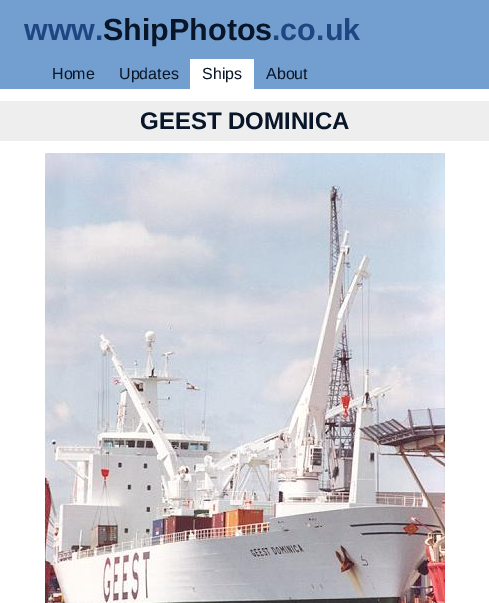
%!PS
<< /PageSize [489 603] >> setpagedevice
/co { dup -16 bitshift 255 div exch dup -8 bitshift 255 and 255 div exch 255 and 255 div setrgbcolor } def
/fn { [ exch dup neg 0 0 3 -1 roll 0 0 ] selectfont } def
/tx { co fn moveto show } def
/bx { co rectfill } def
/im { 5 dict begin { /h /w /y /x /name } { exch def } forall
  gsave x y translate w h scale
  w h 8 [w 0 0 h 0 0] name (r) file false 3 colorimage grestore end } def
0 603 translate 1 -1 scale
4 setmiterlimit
0 0 489 603 16#729FCF bx
190 59 64 30 16#FFFFFF bx
0 89 489 514 16#FFFFFF bx
0 101 489 40 16#EEEEEE bx
(media/1.raw) 45 153 400 450 im
(www.) 24 40 /LiberationSans-Bold 30.5 16#1E4682 tx
(ShipPhotos) 103 40 /LiberationSans-Bold 30.5 16#091629 tx
(.co.uk) 272 40 /LiberationSans-Bold 30.5 16#1E4682 tx
(Home) 52 79 /LiberationSans-Regular 16 16#091629 tx
(Updates) 119 79 /LiberationSans-Regular 16 16#091629 tx
(Ships) 202 79 /LiberationSans-Regular 16 16#091629 tx
(About) 266 79 /LiberationSans-Regular 16 16#091629 tx
(GEEST DOMINICA) 140 129 /LiberationSans-Bold 24 16#091629 tx
showpage
